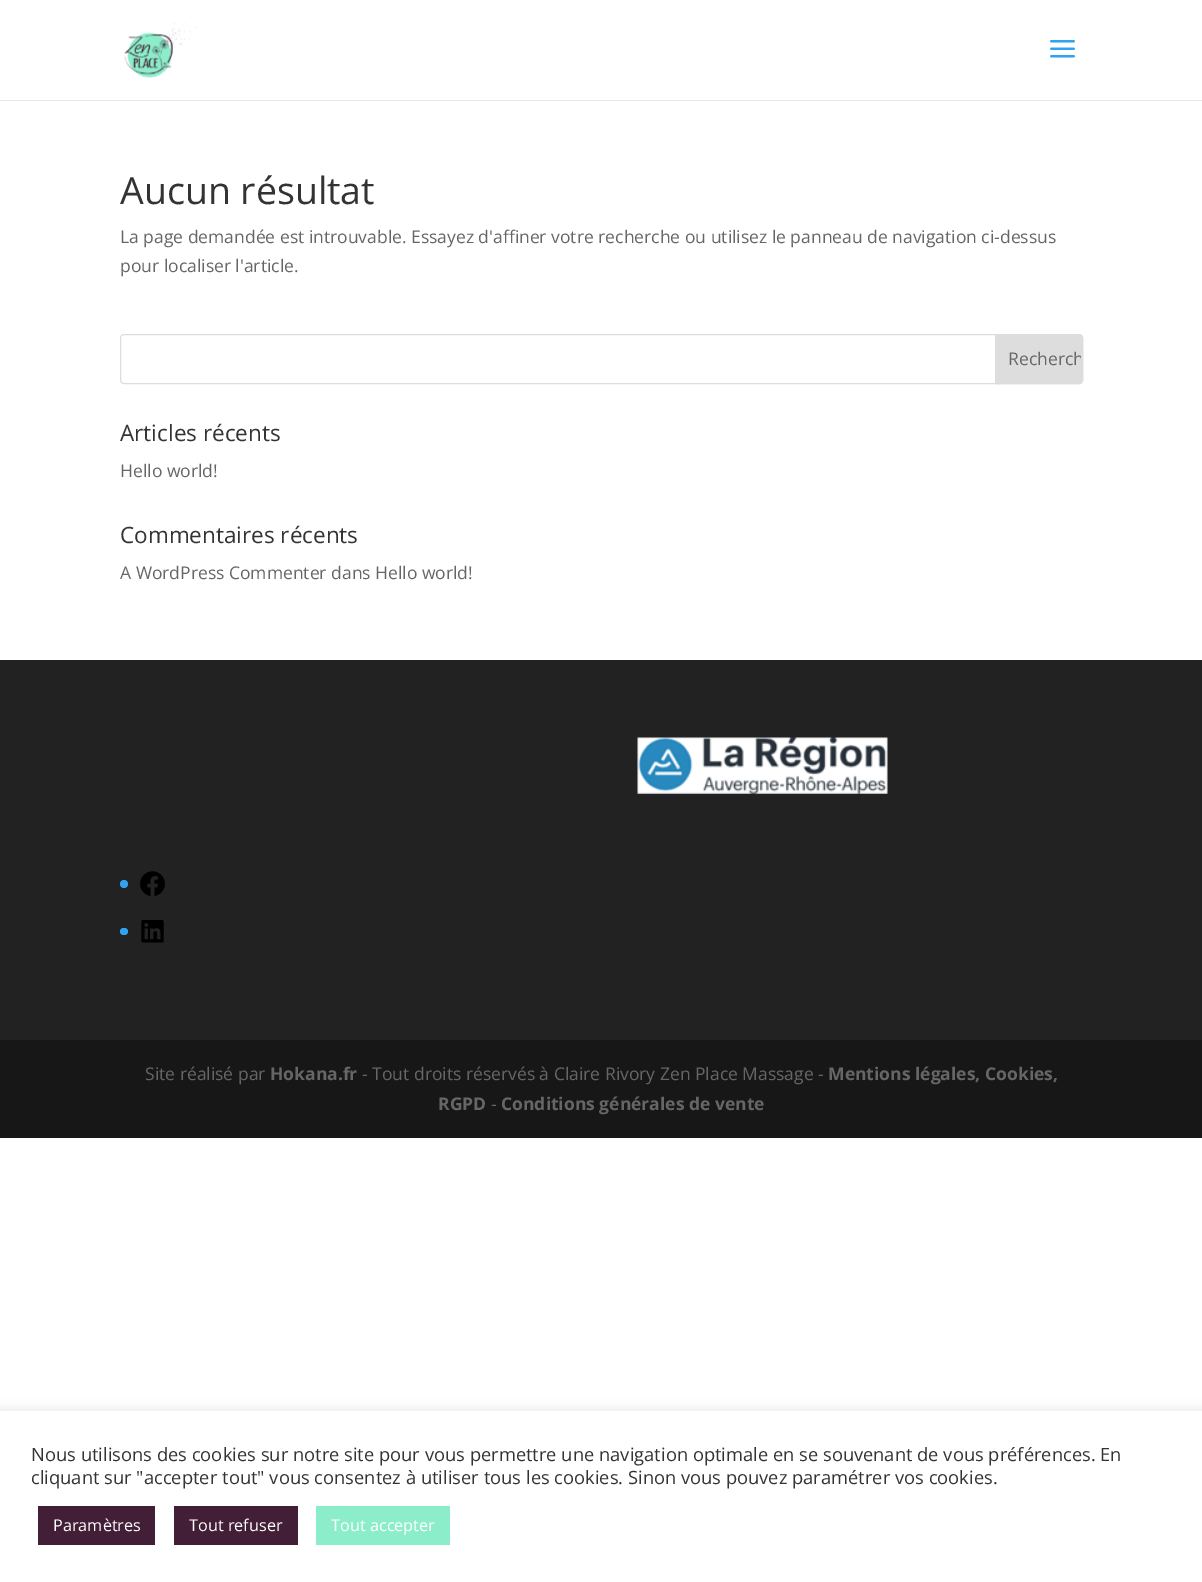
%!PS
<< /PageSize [1202 1582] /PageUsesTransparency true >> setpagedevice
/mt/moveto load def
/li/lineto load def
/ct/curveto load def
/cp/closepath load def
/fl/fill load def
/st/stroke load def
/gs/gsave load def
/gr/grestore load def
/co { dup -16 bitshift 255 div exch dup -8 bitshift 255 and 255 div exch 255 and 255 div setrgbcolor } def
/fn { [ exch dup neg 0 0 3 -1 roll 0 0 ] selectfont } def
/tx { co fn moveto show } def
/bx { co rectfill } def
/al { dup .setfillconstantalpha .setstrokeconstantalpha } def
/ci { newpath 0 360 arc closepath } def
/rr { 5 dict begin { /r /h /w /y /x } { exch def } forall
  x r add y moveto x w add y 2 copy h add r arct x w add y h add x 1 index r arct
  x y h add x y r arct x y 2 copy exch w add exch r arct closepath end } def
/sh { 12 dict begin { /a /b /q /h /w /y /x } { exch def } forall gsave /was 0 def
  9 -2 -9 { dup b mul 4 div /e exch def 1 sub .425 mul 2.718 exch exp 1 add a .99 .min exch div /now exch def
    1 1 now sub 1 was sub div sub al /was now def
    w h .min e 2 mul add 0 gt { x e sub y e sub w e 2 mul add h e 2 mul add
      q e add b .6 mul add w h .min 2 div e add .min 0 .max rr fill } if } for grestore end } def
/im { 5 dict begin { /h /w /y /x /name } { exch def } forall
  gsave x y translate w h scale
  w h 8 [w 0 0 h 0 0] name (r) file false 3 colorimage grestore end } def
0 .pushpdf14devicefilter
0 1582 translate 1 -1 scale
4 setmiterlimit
0 0 1202 1582 16#FFFFFF bx
16#E6E6E6 co
0 100 mt 0 101 li 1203 101 li 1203 1 li 1202 1 li 1202 100 li cp fl
(media/1.raw) 124 22 73 56 im
(media/2.raw) 1050 40 25 18 im
16#DDDDDD co
120.5 334.5 962 49 3.5 rr st
995.5 334.5 mt 1079 334.5 li 1081 334.5 1082.5 336 1082.5 338 ct 1082.5 380 li 1082.5 382 1081 383.5 1079 383.5 ct 995.5 383.5 li cp gs fl gr
st
0 660 1202 380 16#222222 bx
(media/3.raw) 637 737 251 57 im
16#2EA3F2 co
124 884 4 ci fl
(media/4.raw) 140 871 25 25 im
120 928 8 7 3.5 rr fl
(media/5.raw) 141 920 23 23 im
0 1040 1202 98 16#171717 bx
16#ACABAB co
0 1410 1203 171 0 6 .3 sh
0 1411 1202 171 16#FFFFFF bx
38 1506 117 39 16#431F37 bx
174 1506 124 39 16#431F37 bx
316 1506 134 39 16#8BEDC9 bx
(Aucun résultat) 120 204 /OpenSans-Regular 37.5 16#333333 tx
(La page demandée est introuvable. Essayez d'affiner votre recherche ou utilisez le panneau de navigation ci-dessus) 120 243 /OpenSans-Regular 17.5 16#666666 tx
(pour localiser l'article.) 120 272 /OpenSans-Regular 17.5 16#666666 tx
gs
996 335 mt 1078.5 335 li 1080 335 1081 336 1081 337.5 ct 1081 380.5 li 1081 382 1080 383 1078.5 383 ct 996 383 li cp clip newpath
(Recherch) 1008 365 /OpenSans-Regular 17.5 16#666666 tx
gr
(Articles récents) 120 441 /OpenSans-Regular 22.5 16#333333 tx
(Hello world!) 120 477 /OpenSans-Regular 17.5 16#666666 tx
(Commentaires récents) 120 543 /OpenSans-Regular 22.5 16#333333 tx
(A WordPress Commenter dans Hello world!) 120 579 /OpenSans-Regular 17.5 16#666666 tx
(Site réalisé par) 145 1080 /OpenSans-Regular 17.5 16#666666 tx
(Hokana.fr) 270 1080 /OpenSans-Bold 17.5 16#666666 tx
(- Tout droits réservés à Claire Rivory Zen Place Massage -) 362 1080 /OpenSans-Regular 17.5 16#666666 tx
(Mentions légales, Cookies,) 828 1080 /OpenSans-Bold 17.5 16#666666 tx
(RGPD) 438 1110 /OpenSans-Bold 17.5 16#666666 tx
(-) 491 1110 /OpenSans-Regular 17.5 16#666666 tx
(Conditions générales de vente) 501 1110 /OpenSans-Bold 17.5 16#666666 tx
(Nous utilisons des cookies sur notre site pour vous permettre une navigation optimale en se souvenant de vous préférences. En) 31 1461 /OpenSans-Regular 18.33 16#333333 tx
(cliquant sur "accepter tout" vous consentez à utiliser tous les cookies. Sinon vous pouvez paramétrer vos cookies.) 31 1484 /OpenSans-Regular 18.33 16#333333 tx
(Paramètres) 53 1531 /OpenSans-Regular 16.25 16#FFFFFF tx
(Tout refuser) 189 1531 /OpenSans-Regular 16.25 16#FFFFFF tx
(Tout accepter) 331 1531 /OpenSans-Regular 16.25 16#FFFFFF tx
.poppdf14devicefilter showpage
